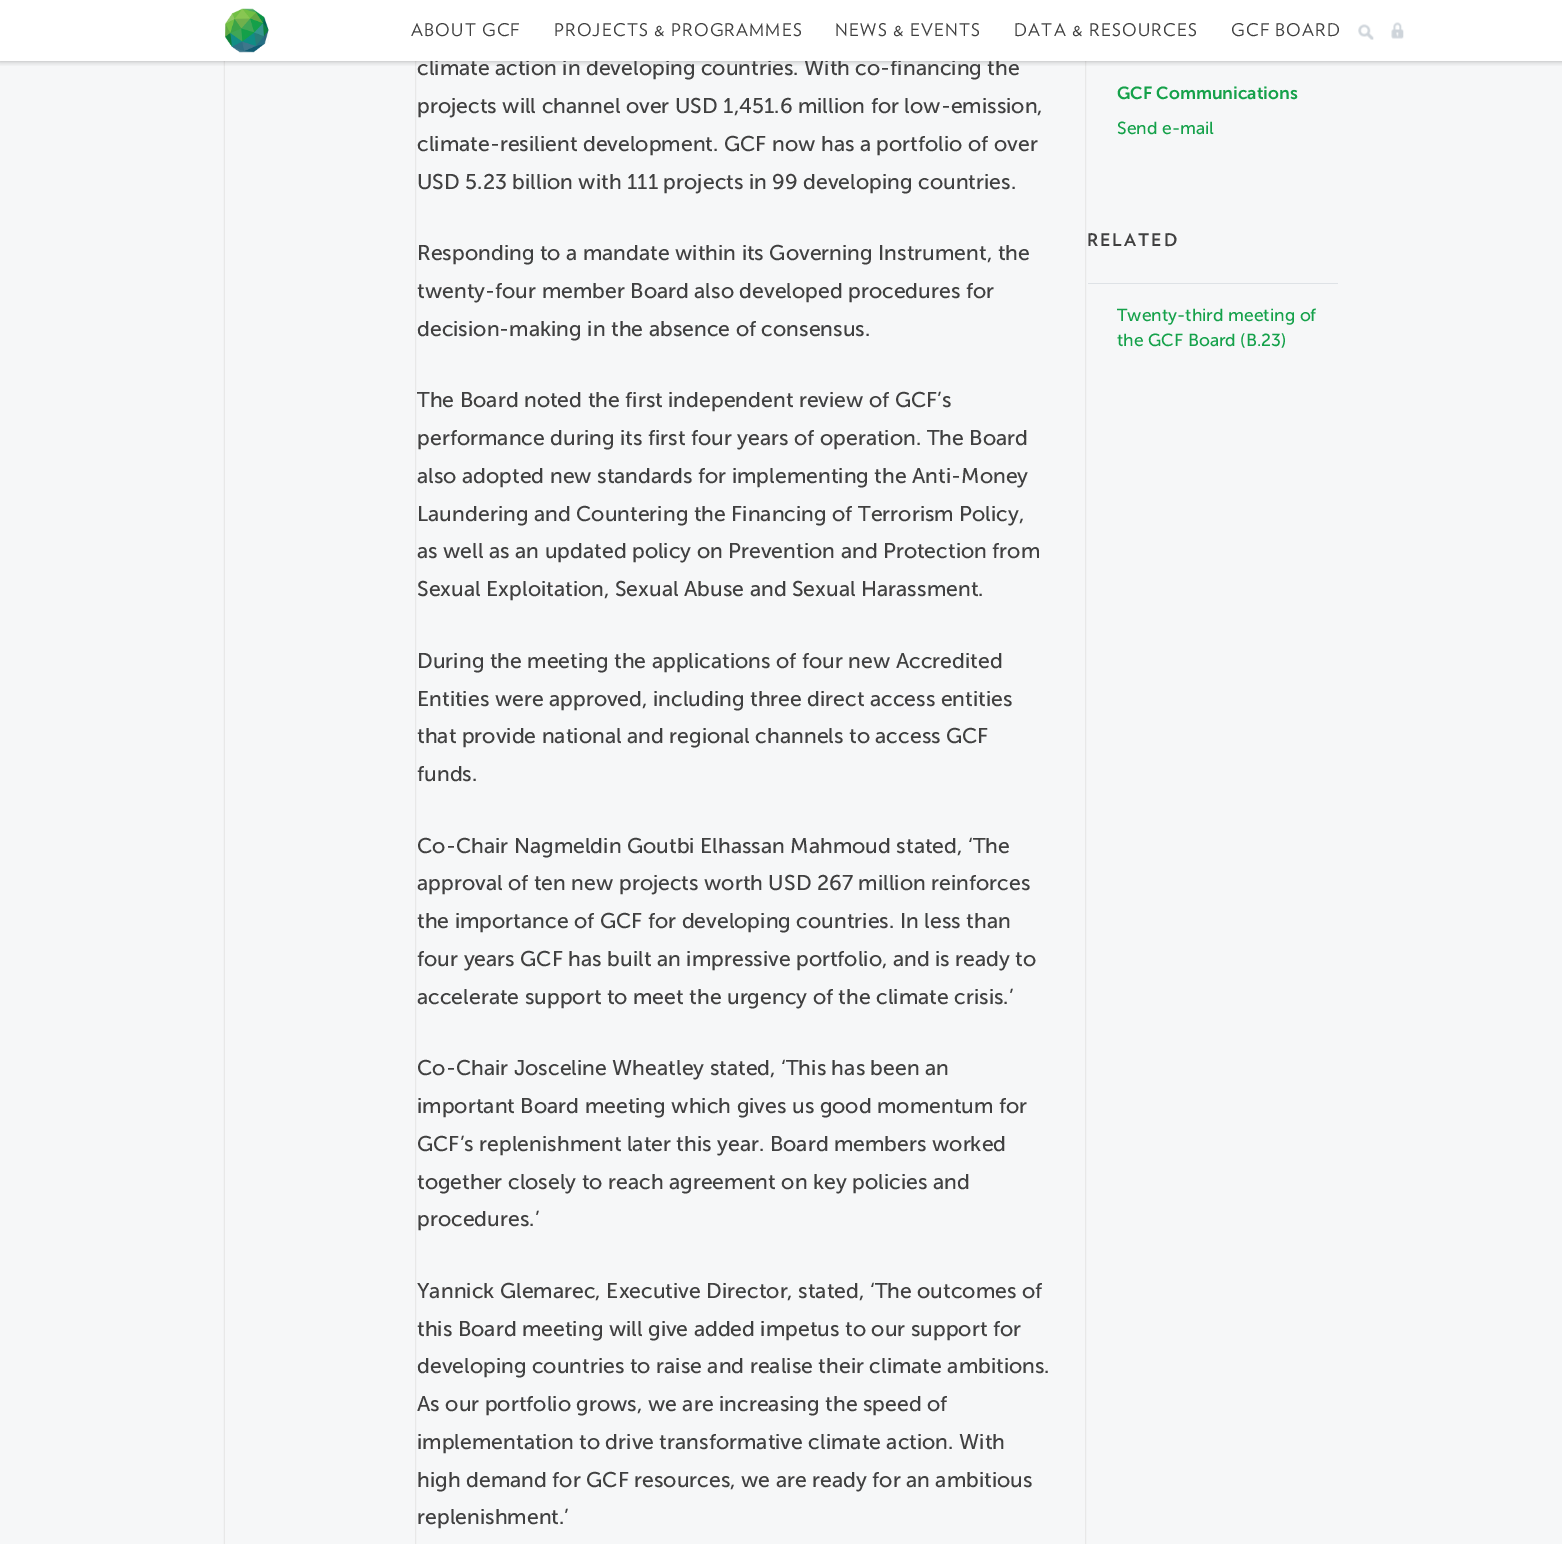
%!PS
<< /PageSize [1562 1544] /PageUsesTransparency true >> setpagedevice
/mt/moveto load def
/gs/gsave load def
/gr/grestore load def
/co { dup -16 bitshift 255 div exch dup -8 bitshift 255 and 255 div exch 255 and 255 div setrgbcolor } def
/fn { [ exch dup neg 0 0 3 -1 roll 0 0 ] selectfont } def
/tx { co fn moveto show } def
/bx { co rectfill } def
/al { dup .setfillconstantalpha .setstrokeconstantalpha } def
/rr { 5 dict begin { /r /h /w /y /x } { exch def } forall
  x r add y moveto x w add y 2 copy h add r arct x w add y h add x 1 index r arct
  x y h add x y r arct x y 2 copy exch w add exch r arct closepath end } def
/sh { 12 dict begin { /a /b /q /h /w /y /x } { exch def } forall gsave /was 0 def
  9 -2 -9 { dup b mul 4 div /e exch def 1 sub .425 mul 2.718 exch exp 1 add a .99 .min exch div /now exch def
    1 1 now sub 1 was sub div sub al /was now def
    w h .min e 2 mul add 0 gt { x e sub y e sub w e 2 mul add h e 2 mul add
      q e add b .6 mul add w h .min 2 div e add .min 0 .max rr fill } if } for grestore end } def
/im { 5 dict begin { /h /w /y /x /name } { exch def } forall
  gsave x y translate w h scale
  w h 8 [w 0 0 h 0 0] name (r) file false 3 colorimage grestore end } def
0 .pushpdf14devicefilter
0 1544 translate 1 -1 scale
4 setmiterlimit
0 0 1562 1544 16#F6F7F8 bx
(media/1.raw) 223 0 864 1544 im
gs
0 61 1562 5 rectclip
16#000000 co
0 0 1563 61 0 3 .32 sh
gr
1088 283 250 1 16#DEE2E6 bx
(climate action in developing countries. With co-financing the) 417 75 /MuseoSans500-Regular 21.25 16#404040 tx
0.98 al
0 0 1562 61 16#FFFFFF bx
/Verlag-Regular 17.5 fn
1 al
16#404040 co
1231 36 mt 1.25 0 (GCF BOARD) ashow
1014 36 mt 1.25 0 (DATA & RESOURCES) ashow
835 36 mt 1.25 0 (NEWS & EVENTS) ashow
554 36 mt 1.25 0 (PROJECTS & PROGRAMMES) ashow
411 36 mt 1.25 0 (ABOUT GCF) ashow
(media/4.raw) 1391 22 13 17 im
(media/3.raw) 1358 24 16 16 im
(media/2.raw) 225 8 44 45 im
(projects will channel over USD 1,451.6 million for low-emission,) 417 113 /MuseoSans500-Regular 21.25 16#404040 tx
(climate-resilient development. GCF now has a portfolio of over) 417 151 /MuseoSans500-Regular 21.25 16#404040 tx
(USD 5.23 billion with 111 projects in 99 developing countries.) 417 189 /MuseoSans500-Regular 21.25 16#404040 tx
(Responding to a mandate within its Governing Instrument, the) 417 260 /MuseoSans500-Regular 21.25 16#404040 tx
(twenty-four member Board also developed procedures for) 417 298 /MuseoSans500-Regular 21.25 16#404040 tx
(decision-making in the absence of consensus.) 417 336 /MuseoSans500-Regular 21.25 16#404040 tx
(The Board noted the first independent review of GCF’s) 417 407 /MuseoSans500-Regular 21.25 16#404040 tx
(performance during its first four years of operation. The Board) 417 445 /MuseoSans500-Regular 21.25 16#404040 tx
(also adopted new standards for implementing the Anti-Money) 417 483 /MuseoSans500-Regular 21.25 16#404040 tx
(Laundering and Countering the Financing of Terrorism Policy,) 417 521 /MuseoSans500-Regular 21.25 16#404040 tx
(as well as an updated policy on Prevention and Protection from) 417 558 /MuseoSans500-Regular 21.25 16#404040 tx
(Sexual Exploitation, Sexual Abuse and Sexual Harassment.) 417 596 /MuseoSans500-Regular 21.25 16#404040 tx
(During the meeting the applications of four new Accredited) 417 668 /MuseoSans500-Regular 21.25 16#404040 tx
(Entities were approved, including three direct access entities) 417 706 /MuseoSans500-Regular 21.25 16#404040 tx
(that provide national and regional channels to access GCF) 417 743 /MuseoSans500-Regular 21.25 16#404040 tx
(funds.) 417 781 /MuseoSans500-Regular 21.25 16#404040 tx
(Co-Chair Nagmeldin Goutbi Elhassan Mahmoud stated, ‘The) 417 853 /MuseoSans500-Regular 21.25 16#404040 tx
(approval of ten new projects worth USD 267 million reinforces) 417 890 /MuseoSans500-Regular 21.25 16#404040 tx
(the importance of GCF for developing countries. In less than) 417 928 /MuseoSans500-Regular 21.25 16#404040 tx
(four years GCF has built an impressive portfolio, and is ready to) 417 966 /MuseoSans500-Regular 21.25 16#404040 tx
(accelerate support to meet the urgency of the climate crisis.’) 417 1004 /MuseoSans500-Regular 21.25 16#404040 tx
(Co-Chair Josceline Wheatley stated, ‘This has been an) 417 1075 /MuseoSans500-Regular 21.25 16#404040 tx
(important Board meeting which gives us good momentum for) 417 1113 /MuseoSans500-Regular 21.25 16#404040 tx
(GCF’s replenishment later this year. Board members worked) 417 1151 /MuseoSans500-Regular 21.25 16#404040 tx
(together closely to reach agreement on key policies and) 417 1189 /MuseoSans500-Regular 21.25 16#404040 tx
(procedures.’) 417 1226 /MuseoSans500-Regular 21.25 16#404040 tx
(Yannick Glemarec, Executive Director, stated, ‘The outcomes of) 417 1298 /MuseoSans500-Regular 21.25 16#404040 tx
(this Board meeting will give added impetus to our support for) 417 1336 /MuseoSans500-Regular 21.25 16#404040 tx
(developing countries to raise and realise their climate ambitions.) 417 1373 /MuseoSans500-Regular 21.25 16#404040 tx
(As our portfolio grows, we are increasing the speed of) 417 1411 /MuseoSans500-Regular 21.25 16#404040 tx
(implementation to drive transformative climate action. With) 417 1449 /MuseoSans500-Regular 21.25 16#404040 tx
(high demand for GCF resources, we are ready for an ambitious) 417 1487 /MuseoSans500-Regular 21.25 16#404040 tx
(replenishment.’) 417 1524 /MuseoSans500-Regular 21.25 16#404040 tx
(GCF Communications) 1117 99 /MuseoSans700-SemiBold 17.5 16#15A14A tx
(Send e-mail) 1117 134 /MuseoSans500-Regular 17.5 16#15A14A tx
/Verlag-Bold 17.5 fn
16#404040 co
1087 246 mt 2 0 (RELATED) ashow
(Twenty-third meeting of) 1117 321 /MuseoSans500-Regular 17.5 16#15A14A tx
(the GCF Board \(B.23\)) 1117 346 /MuseoSans500-Regular 17.5 16#15A14A tx
.poppdf14devicefilter showpage
